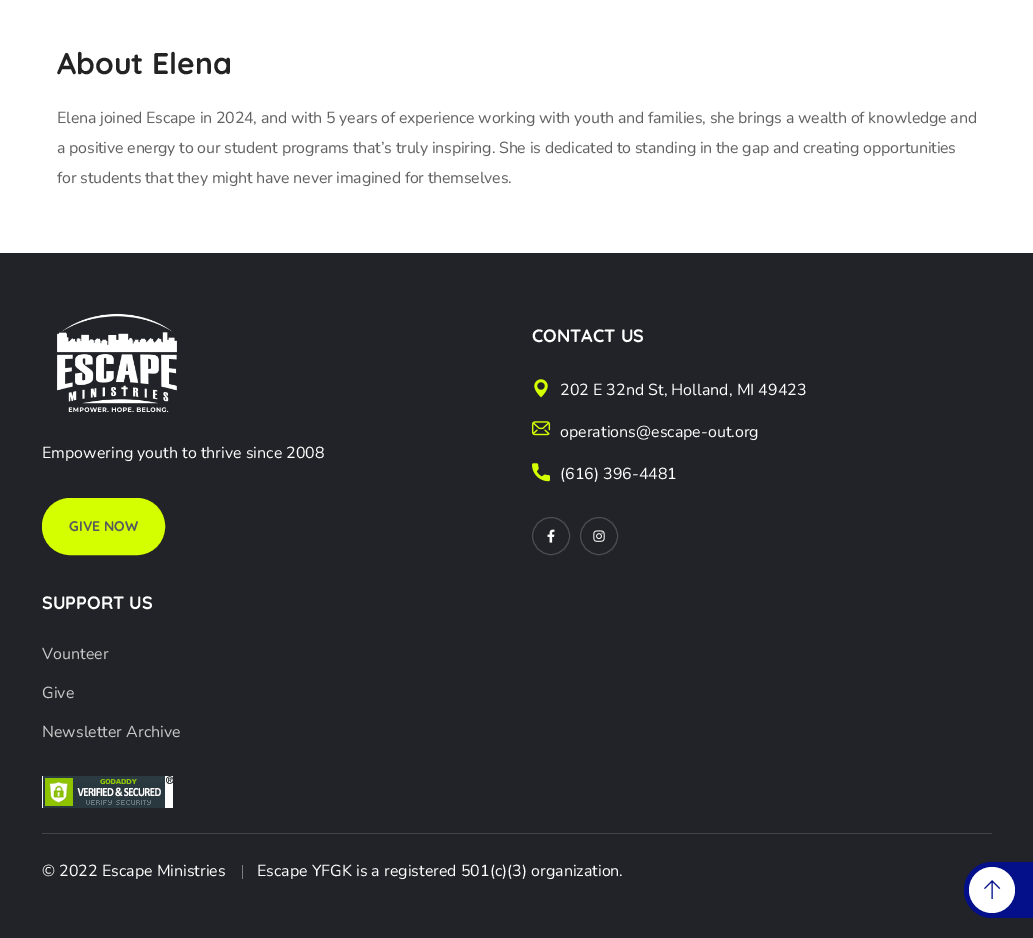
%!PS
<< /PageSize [1033 938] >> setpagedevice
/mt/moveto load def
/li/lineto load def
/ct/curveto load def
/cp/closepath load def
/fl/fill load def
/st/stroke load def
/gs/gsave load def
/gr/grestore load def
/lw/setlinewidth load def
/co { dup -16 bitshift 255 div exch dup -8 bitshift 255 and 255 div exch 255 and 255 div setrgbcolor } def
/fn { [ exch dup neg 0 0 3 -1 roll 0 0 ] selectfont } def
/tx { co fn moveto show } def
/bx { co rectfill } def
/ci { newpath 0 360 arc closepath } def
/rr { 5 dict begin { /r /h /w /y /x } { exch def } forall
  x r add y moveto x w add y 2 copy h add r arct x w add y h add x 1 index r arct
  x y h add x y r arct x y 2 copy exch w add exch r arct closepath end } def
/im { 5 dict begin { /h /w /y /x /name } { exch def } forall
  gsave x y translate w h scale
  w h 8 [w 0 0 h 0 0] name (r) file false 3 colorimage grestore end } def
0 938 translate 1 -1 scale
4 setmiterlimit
0 0 1033 938 16#FFFFFF bx
0 253 1033 685 16#222328 bx
(media/1.raw) 57 313 120 100 im
16#D4FF00 co
43 499 121 55 27 rr gs fl gr
2 lw
st
(media/2.raw) 534 379 14 19 im
(media/3.raw) 532 421 19 15 im
(media/4.raw) 532 463 18 19 im
16#4C4D51 co
1 lw
551 536 18.5 ci st
(media/5.raw) 547 529 8 14 im
599 536 18.5 ci st
(media/6.raw) 593 530 12 12 im
(media/7.raw) 42 776 131 32 im
42 833 950 1 16#434448 bx
242 865 1 14 16#7D7D7E bx
16#03108A co
992 862 mt 1033 862 li 1033 918 li 992 918 li 976.5 918 964 905.5 964 890 ct 964 874.5 976.5 862 992 862 ct cp fl
16#FFFFFF co
992 890 23 ci fl
(media/8.raw) 984 880 17 19 im
(About Elena) 57 74 /Quicksand-Bold 30 16#232323 tx
/Nunito-Regular 16 fn
16#616161 co
57 123 mt -.2 0 (Elena joined Escape in 2024, and with 5 years of experience working with youth and families, she brings a wealth of knowledge and) ashow
57 153 mt -.2 0 (a positive energy to our student programs that’s truly inspiring. She is dedicated to standing in the gap and creating opportunities) ashow
57 183 mt -.2 0 (for students that they might have never imagined for themselves.) ashow
(Empowering youth to thrive since 2008) 42 458 /Nunito-Regular 16 16#FFFFFF tx
(GIVE NOW) 69 531 /Quicksand-Bold 14 16#54595F tx
(CONTACT US) 532 342 /Quicksand-Bold 18 16#FFFFFF tx
(202 E 32nd St, Holland, MI 49423) 560 395 /Nunito-Regular 16 16#FFFFFF tx
(operations@escape-out.org) 560 437 /Nunito-Regular 16 16#FFFFFF tx
(\(616\) 396-4481) 560 479 /Nunito-Regular 16 16#FFFFFF tx
(SUPPORT US) 42 609 /Quicksand-Bold 18 16#FFFFFF tx
(Vounteer) 42 659 /Nunito-Regular 16 16#C9C9C9 tx
(Give) 42 698 /Nunito-Regular 16 16#C9C9C9 tx
(Newsletter Archive) 42 737 /Nunito-Regular 16 16#C9C9C9 tx
(© 2022 Escape Ministries) 42 876 /Nunito-Regular 16 16#FFFFFF tx
(Escape YFGK is a registered 501\(c\)\(3\) organization.) 257 876 /Nunito-Regular 16 16#FFFFFF tx
showpage
